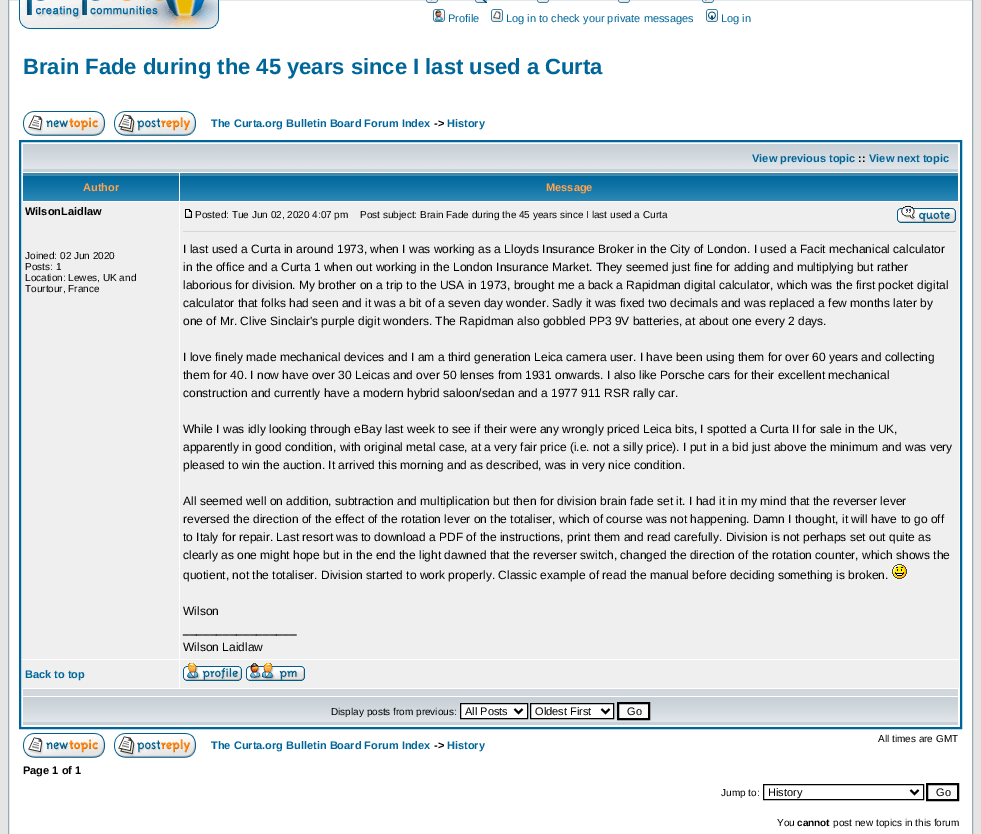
%!PS
<< /PageSize [981 834] >> setpagedevice
/mt/moveto load def
/li/lineto load def
/cp/closepath load def
/fl/fill load def
/st/stroke load def
/gs/gsave load def
/gr/grestore load def
/lw/setlinewidth load def
/co { dup -16 bitshift 255 div exch dup -8 bitshift 255 and 255 div exch 255 and 255 div setrgbcolor } def
/fn { [ exch dup neg 0 0 3 -1 roll 0 0 ] selectfont } def
/tx { co fn moveto show } def
/bx { co rectfill } def
/im { 5 dict begin { /h /w /y /x /name } { exch def } forall
  gsave x y translate w h scale
  w h 8 [w 0 0 h 0 0] name (r) file false 3 colorimage grestore end } def
0 834 translate 1 -1 scale
4 setmiterlimit
0 0 981 834 16#E5E5E5 bx
16#FFFFFF co
8.5 -.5 mt 972.5 -.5 li 972.5 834.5 li 8.5 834.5 li cp gs fl gr
16#98AAB1 co
st
(media/1.raw) 19 0 200 29 im
(media/2.raw) 426 0 12 3 im
(media/3.raw) 475 0 12 3 im
(media/4.raw) 537 0 12 3 im
(media/5.raw) 618 0 12 3 im
(media/6.raw) 702 0 12 3 im
(media/7.raw) 433 9 12 13 im
(media/8.raw) 491 9 12 13 im
(media/9.raw) 706 9 12 13 im
(media/10.raw) 23 111 82 25 im
(media/11.raw) 114 111 82 25 im
16#006699 co
2 lw
20 141 941 587 rectstroke
(media/12.raw) 23 144 935 28 im
(media/13.raw) 23 173 156 28 im
(media/14.raw) 180 173 778 28 im
22 202 157 457 16#EFEFEF bx
180 202 779 457 16#EFEFEF bx
(media/15.raw) 185 209 7 9 im
(media/16.raw) 897 206 59 17 im
183 231 773 1 16#D1D7DC bx
(media/17.raw) 892 564 15 15 im
22 660 157 28 16#EFEFEF bx
180 660 779 28 16#EFEFEF bx
(media/18.raw) 183 663 59 18 im
(media/19.raw) 246 663 59 18 im
23 689 935 7 16#D1D7DC bx
(media/12.raw) 23 697 935 28 im
16#FFFFFF co
460.5 703.5 mt 527.5 703.5 li 527.5 718.5 li 460.5 718.5 li cp gs fl gr
16#000000 co
1 lw
st
2 lw
514.5 709 mt 518.5 713 li 522.5 709 li st
16#FFFFFF co
530.5 703.5 mt 613.5 703.5 li 613.5 718.5 li 530.5 718.5 li cp gs fl gr
16#000000 co
1 lw
st
2 lw
601.5 709 mt 605.5 713 li 609.5 709 li st
16#FAFAFA co
618 703 mt 649 703 li 649 719 li 618 719 li cp gs fl gr
16#000000 co
st
(media/10.raw) 23 733 82 25 im
(media/11.raw) 114 733 82 25 im
1 lw
763.5 784.5 160 15 rectstroke
2 lw
910.5 790 mt 914.5 794 li 918.5 790 li st
16#FAFAFA co
927 784 mt 958 784 li 958 800 li 927 800 li cp gs fl gr
16#000000 co
st
(Profile) 448 22 /LiberationSans-Regular 11 16#006699 tx
(Log in to check your private messages) 506 22 /LiberationSans-Regular 11 16#006699 tx
(Log in) 721 22 /LiberationSans-Regular 11 16#006699 tx
(Brain Fade during the 45 years since I last used a Curta) 23 74 /LiberationSans-Bold 22 16#006699 tx
(The Curta.org Bulletin Board Forum Index) 211 127 /LiberationSans-Bold 11 16#006699 tx
(->) 434 127 /LiberationSans-Bold 11 16#000000 tx
(History) 447 127 /LiberationSans-Bold 11 16#006699 tx
(View previous topic) 752 162 /LiberationSans-Bold 11 16#006699 tx
(::) 858 162 /LiberationSans-Bold 11 16#000000 tx
(View next topic) 869 162 /LiberationSans-Bold 11 16#006699 tx
(Author) 83 191 /LiberationSans-Bold 11 16#FFA34F tx
(Message) 546 191 /LiberationSans-Bold 11 16#FFA34F tx
(WilsonLaidlaw) 25 215 /LiberationSans-Bold 11 16#000000 tx
(Joined: 02 Jun 2020) 25 259 /LiberationSans-Regular 10 16#000000 tx
(Posts: 1) 25 270 /LiberationSans-Regular 10 16#000000 tx
(Location: Lewes, UK and) 25 281 /LiberationSans-Regular 10 16#000000 tx
(Tourtour, France) 25 292 /LiberationSans-Regular 10 16#000000 tx
(Posted: Tue Jun 02, 2020 4:07 pm) 195 218 /LiberationSans-Regular 10 16#000000 tx
(Post subject: Brain Fade during the 45 years since I last used a Curta) 360 218 /LiberationSans-Regular 10 16#000000 tx
(I last used a Curta in around 1973, when I was working as a Lloyds Insurance Broker in the City of London. I used a Facit mechanical calculator) 183 253 /LiberationSans-Regular 12 16#000000 tx
(in the office and a Curta 1 when out working in the London Insurance Market. They seemed just fine for adding and multiplying but rather) 183 271 /LiberationSans-Regular 12 16#000000 tx
(laborious for division. My brother on a trip to the USA in 1973, brought me a back a Rapidman digital calculator, which was the first pocket digital) 183 289 /LiberationSans-Regular 12 16#000000 tx
(calculator that folks had seen and it was a bit of a seven day wonder. Sadly it was fixed two decimals and was replaced a few months later by) 183 307 /LiberationSans-Regular 12 16#000000 tx
(one of Mr. Clive Sinclair's purple digit wonders. The Rapidman also gobbled PP3 9V batteries, at about one every 2 days.) 183 325 /LiberationSans-Regular 12 16#000000 tx
(I love finely made mechanical devices and I am a third generation Leica camera user. I have been using them for over 60 years and collecting) 183 361 /LiberationSans-Regular 12 16#000000 tx
(them for 40. I now have over 30 Leicas and over 50 lenses from 1931 onwards. I also like Porsche cars for their excellent mechanical) 183 379 /LiberationSans-Regular 12 16#000000 tx
(construction and currently have a modern hybrid saloon/sedan and a 1977 911 RSR rally car.) 183 397 /LiberationSans-Regular 12 16#000000 tx
(While I was idly looking through eBay last week to see if their were any wrongly priced Leica bits, I spotted a Curta II for sale in the UK,) 183 433 /LiberationSans-Regular 12 16#000000 tx
(apparently in good condition, with original metal case, at a very fair price \(i.e. not a silly price\). I put in a bid just above the minimum and was very) 183 451 /LiberationSans-Regular 12 16#000000 tx
(pleased to win the auction. It arrived this morning and as described, was in very nice condition.) 183 469 /LiberationSans-Regular 12 16#000000 tx
(All seemed well on addition, subtraction and multiplication but then for division brain fade set it. I had it in my mind that the reverser lever) 183 505 /LiberationSans-Regular 12 16#000000 tx
(reversed the direction of the effect of the rotation lever on the totaliser, which of course was not happening. Damn I thought, it will have to go off) 183 523 /LiberationSans-Regular 12 16#000000 tx
(to Italy for repair. Last resort was to download a PDF of the instructions, print them and read carefully. Division is not perhaps set out quite as) 183 541 /LiberationSans-Regular 12 16#000000 tx
(clearly as one might hope but in the end the light dawned that the reverser switch, changed the direction of the rotation counter, which shows the) 183 559 /LiberationSans-Regular 12 16#000000 tx
(quotient, not the totaliser. Division started to work properly. Classic example of read the manual before deciding something is broken.) 183 579 /LiberationSans-Regular 12 16#000000 tx
(Wilson) 183 615 /LiberationSans-Regular 12 16#000000 tx
(_________________) 183 633 /LiberationSans-Regular 12 16#000000 tx
(Wilson Laidlaw) 183 651 /LiberationSans-Regular 12 16#000000 tx
(Back to top) 25 678 /LiberationSans-Bold 11 16#006699 tx
(Display posts from previous:) 331 715 /LiberationSans-Regular 10 16#000000 tx
(All Posts) 465 715 /LiberationSans-Regular 11 16#000000 tx
(Oldest First) 535 715 /LiberationSans-Regular 11 16#000000 tx
(Go) 627 715 /LiberationSans-Regular 11 16#000000 tx
(All times are GMT) 878 742 /LiberationSans-Regular 10 16#000000 tx
(The Curta.org Bulletin Board Forum Index) 211 749 /LiberationSans-Bold 11 16#006699 tx
(->) 434 749 /LiberationSans-Bold 11 16#000000 tx
(History) 447 749 /LiberationSans-Bold 11 16#006699 tx
(Page 1 of 1) 23 774 /LiberationSans-Bold 11 16#000000 tx
(Jump to:) 721 796 /LiberationSans-Regular 10 16#000000 tx
(History) 768 796 /LiberationSans-Regular 11 16#000000 tx
(Go) 936 796 /LiberationSans-Regular 11 16#000000 tx
(You) 777 826 /LiberationSans-Regular 10 16#000000 tx
(cannot) 797 826 /LiberationSans-Bold 10 16#000000 tx
(post new topics in this forum) 833 826 /LiberationSans-Regular 10 16#000000 tx
showpage
